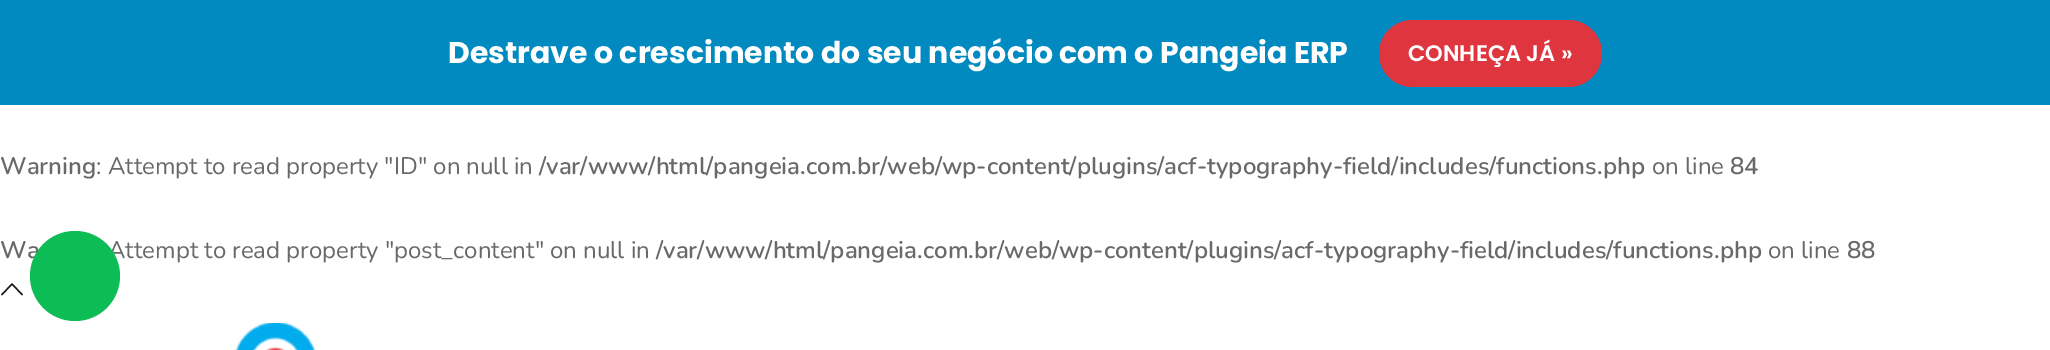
%!PS
<< /PageSize [2050 350] >> setpagedevice
/mt/moveto load def
/li/lineto load def
/cp/closepath load def
/fl/fill load def
/co { dup -16 bitshift 255 div exch dup -8 bitshift 255 and 255 div exch 255 and 255 div setrgbcolor } def
/fn { [ exch dup neg 0 0 3 -1 roll 0 0 ] selectfont } def
/tx { co fn moveto show } def
/bx { co rectfill } def
/ci { newpath 0 360 arc closepath } def
/rr { 5 dict begin { /r /h /w /y /x } { exch def } forall
  x r add y moveto x w add y 2 copy h add r arct x w add y h add x 1 index r arct
  x y h add x y r arct x y 2 copy exch w add exch r arct closepath end } def
/im { 5 dict begin { /h /w /y /x /name } { exch def } forall
  gsave x y translate w h scale
  w h 8 [w 0 0 h 0 0] name (r) file false 3 colorimage grestore end } def
0 350 translate 1 -1 scale
4 setmiterlimit
0 0 2050 350 16#FFFFFF bx
0 0 2050 105 16#018AC0 bx
16#DE353F co
1379 20 223 67 33.5 rr fl
16#191919 co
23 294.5 mt 22 295.5 li 12 285 li 2 295.5 li 1 294.5 li 12 283 li cp fl
(media/1.raw) 235 323 81 27 im
(Destrave o crescimento do seu negócio com o Pangeia ERP) 448 63 /Poppins-Bold 30 16#FFFFFF tx
(CONHEÇA JÁ ») 1408 61 /Poppins-SemiBold 22.5 16#FFFFFF tx
(Warning) 0 174 /Nunito-SemiBold 24 16#696969 tx
(: Attempt to read property "ID" on null in) 96 174 /Nunito-Regular 24 16#696969 tx
(/var/www/html/pangeia.com.br/web/wp-content/plugins/acf-typography-field/includes/functions.php) 539 174 /Nunito-SemiBold 24 16#696969 tx
(on line) 1652 174 /Nunito-Regular 24 16#696969 tx
(84) 1730 174 /Nunito-SemiBold 24 16#696969 tx
(Wa) 0 258 /Nunito-SemiBold 24 16#696969 tx
(Attempt to read property "post_content" on null in) 108 258 /Nunito-Regular 24 16#696969 tx
16#0CBC55 co
75 276 45 ci fl
(/var/www/html/pangeia.com.br/web/wp-content/plugins/acf-typography-field/includes/functions.php) 656 258 /Nunito-SemiBold 24 16#696969 tx
(on line) 1768 258 /Nunito-Regular 24 16#696969 tx
(88) 1847 258 /Nunito-SemiBold 24 16#696969 tx
showpage
